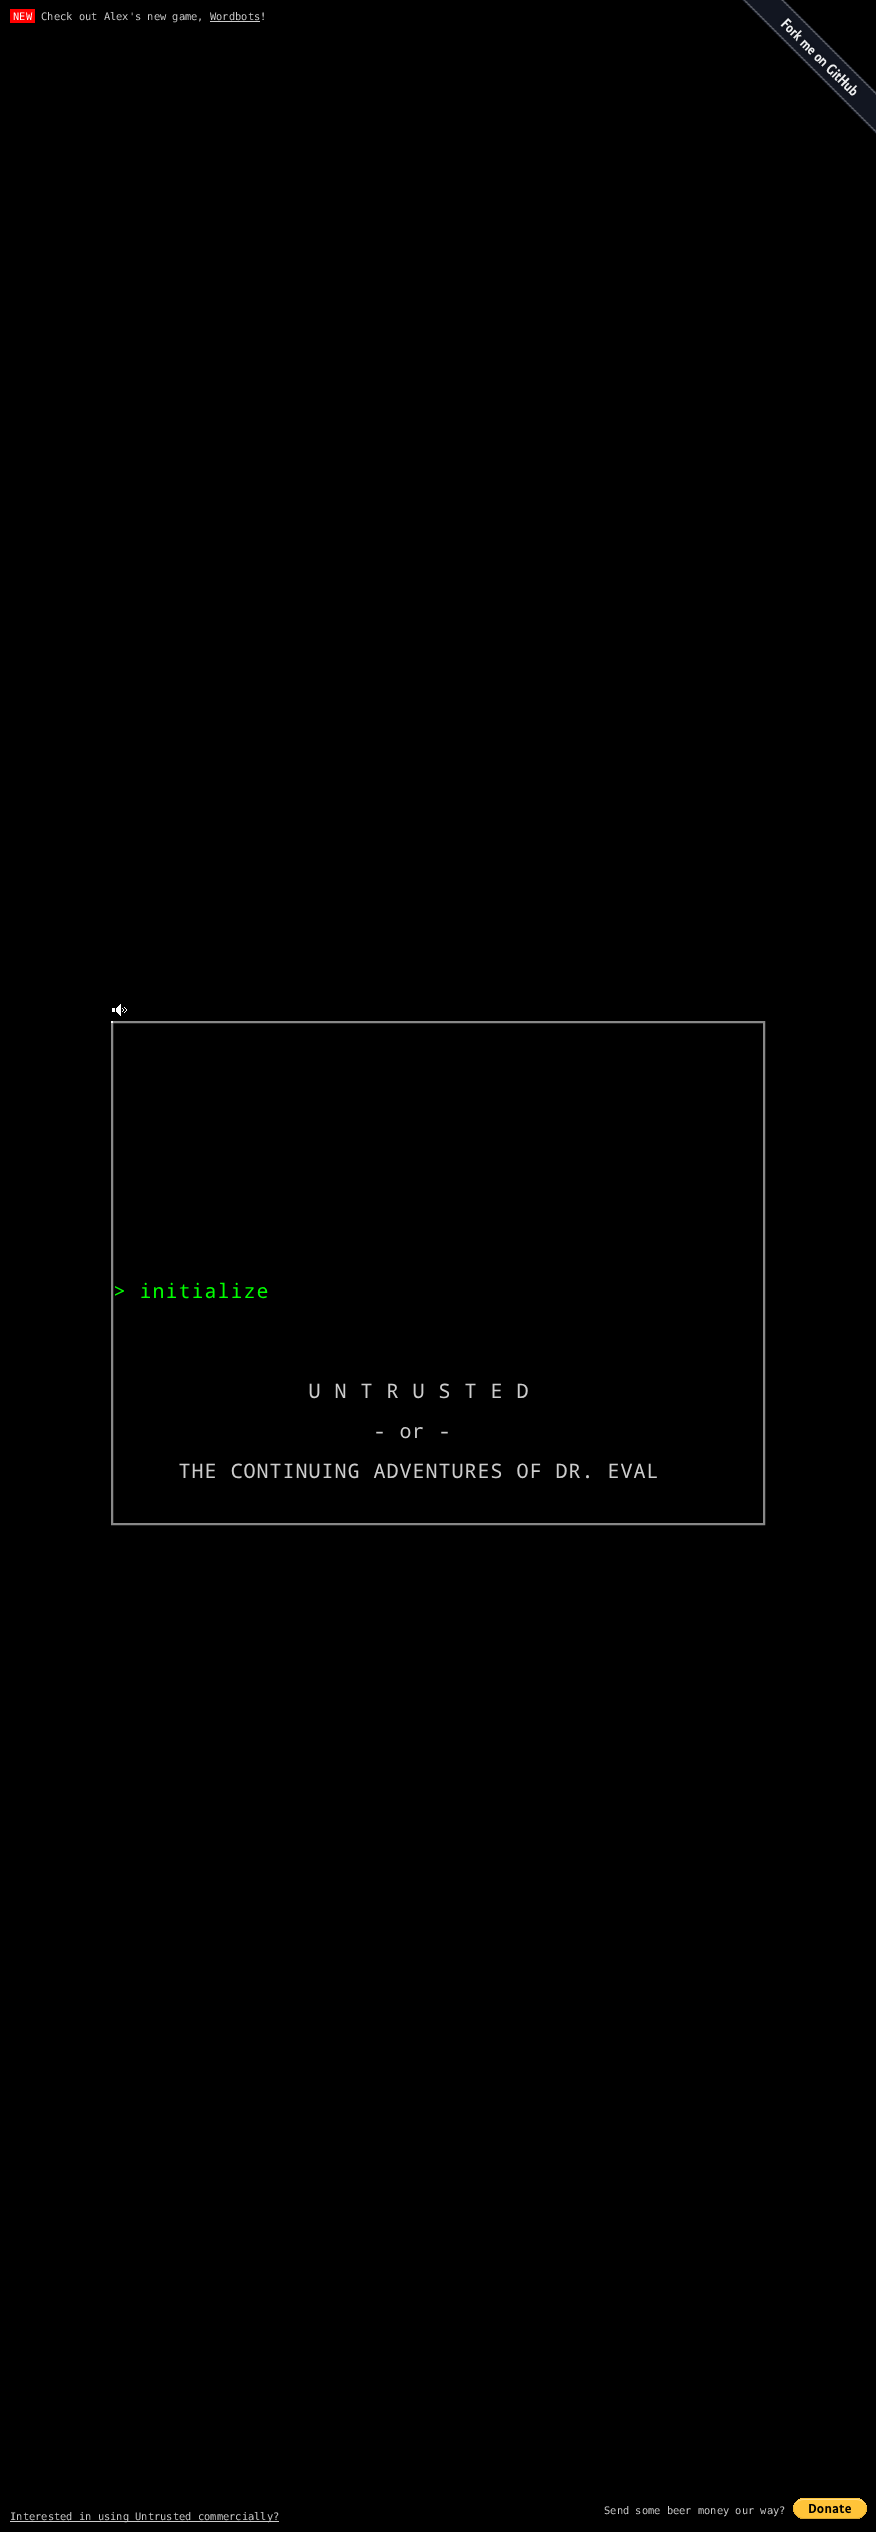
%!PS
<< /PageSize [876 2532] >> setpagedevice
/lw/setlinewidth load def
/co { dup -16 bitshift 255 div exch dup -8 bitshift 255 and 255 div exch 255 and 255 div setrgbcolor } def
/fn { [ exch dup neg 0 0 3 -1 roll 0 0 ] selectfont } def
/tx { co fn moveto show } def
/bx { co rectfill } def
/im { 5 dict begin { /h /w /y /x /name } { exch def } forall
  gsave x y translate w h scale
  w h 8 [w 0 0 h 0 0] name (r) file false 3 colorimage grestore end } def
0 2532 translate 1 -1 scale
4 setmiterlimit
0 0 876 2532 16#000000 bx
10 9 25 14 16#FF0000 bx
210 21 50 1 16#CCCCCC bx
(media/1.raw) 112 1004 15 12 im
16#888888 co
2 lw
112 1022 652 502 rectstroke
(media/2.raw) 114 1282 543 197 im
111 1021 2 2 16#FFFFFF bx
10 2521 269 1 16#CCCCCC bx
(media/3.raw) 793 2498 74 21 im
(media/4.raw) 742 0 134 134 im
(NEW) 13 20 /DejaVuSansMono-Regular 10.4 16#FFFFFF tx
(Check out Alex's new game, Wordbots!) 41 20 /DejaVuSansMono-Regular 10.4 16#CCCCCC tx
(Interested in using Untrusted commercially?) 10 2520 /DejaVuSansMono-Regular 10.4 16#CCCCCC tx
(Send some beer money our way?) 604 2514 /DejaVuSansMono-Regular 10.4 16#CCCCCC tx
showpage
